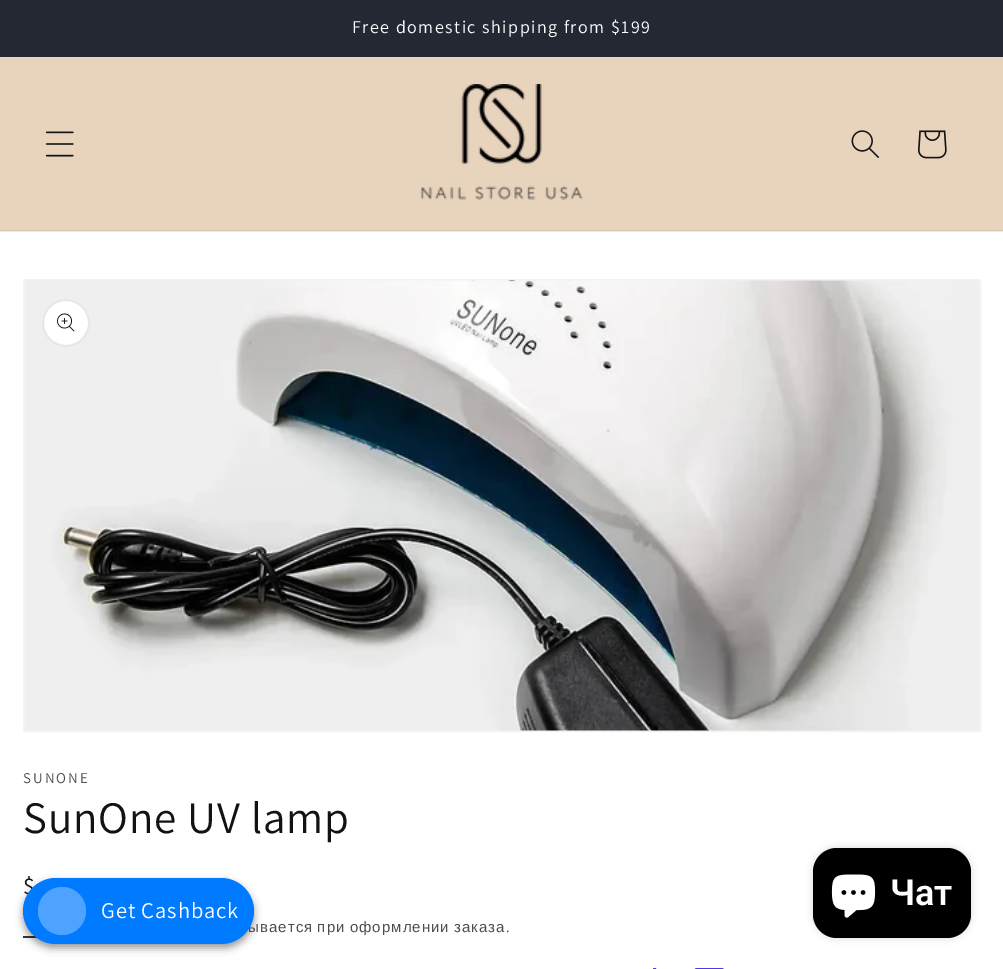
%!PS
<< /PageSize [1003 969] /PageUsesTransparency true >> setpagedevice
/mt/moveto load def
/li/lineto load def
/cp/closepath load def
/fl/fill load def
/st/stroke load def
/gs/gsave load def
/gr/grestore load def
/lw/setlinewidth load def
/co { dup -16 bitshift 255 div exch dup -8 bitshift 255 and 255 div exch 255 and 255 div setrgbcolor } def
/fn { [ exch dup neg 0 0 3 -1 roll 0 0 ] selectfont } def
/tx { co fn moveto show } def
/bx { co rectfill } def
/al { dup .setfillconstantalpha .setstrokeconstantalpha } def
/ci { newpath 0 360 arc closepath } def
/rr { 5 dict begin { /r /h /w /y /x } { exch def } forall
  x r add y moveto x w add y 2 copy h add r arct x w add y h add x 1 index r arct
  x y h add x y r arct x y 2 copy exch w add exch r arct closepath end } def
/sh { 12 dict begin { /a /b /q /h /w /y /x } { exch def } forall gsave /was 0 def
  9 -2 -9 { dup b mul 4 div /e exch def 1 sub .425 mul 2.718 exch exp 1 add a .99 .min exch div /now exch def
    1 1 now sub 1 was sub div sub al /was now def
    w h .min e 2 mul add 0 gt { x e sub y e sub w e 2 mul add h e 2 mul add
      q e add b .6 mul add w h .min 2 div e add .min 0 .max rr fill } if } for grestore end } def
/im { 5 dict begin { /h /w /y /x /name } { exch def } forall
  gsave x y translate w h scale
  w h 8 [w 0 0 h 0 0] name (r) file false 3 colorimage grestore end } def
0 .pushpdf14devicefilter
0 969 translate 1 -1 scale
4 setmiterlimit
0 0 1003 969 16#FFFFFF bx
0 231 1003 1 16#ECECEC bx
0 0 1003 57 16#242833 bx
gs 0 57 mt 1003 57 li 1003 230 li 0 230 li cp clip newpath
<< /ShadingType 2 /ColorSpace /DeviceRGB /Coords [227 -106 777 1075] /Extend [true true] /Function << /FunctionType 3 /Domain [0 1] /Functions [<< /FunctionType 2 /Domain [0 1] /C0 [.91 .827 .741] /C1 [.91 .827 .741] /N 1 >> << /FunctionType 2 /Domain [0 1] /C0 [.91 .827 .741] /C1 [.988 .973 .961] /N 1 >> << /FunctionType 2 /Domain [0 1] /C0 [.988 .973 .961] /C1 [.988 .973 .961] /N 1 >>] /Bounds [.48 .83] /Encode [0 1 0 1 0 1] >> >> shfill gr
gs 0 230 mt 1003 230 li 1003 231 li 0 231 li cp clip newpath
<< /ShadingType 2 /ColorSpace /DeviceRGB /Coords [227 -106 777 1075] /Extend [true true] /Function << /FunctionType 3 /Domain [0 1] /Functions [<< /FunctionType 2 /Domain [0 1] /C0 [.843 .769 .686] /C1 [.843 .769 .686] /N 1 >> << /FunctionType 2 /Domain [0 1] /C0 [.843 .769 .686] /C1 [.914 .902 .89] /N 1 >> << /FunctionType 2 /Domain [0 1] /C0 [.914 .902 .89] /C1 [.914 .902 .89] /N 1 >>] /Bounds [.48 .83] /Encode [0 1 0 1 0 1] >> >> shfill gr
(media/1.raw) 45 131 29 26 im
(media/2.raw) 420 84 163 116 im
(media/3.raw) 851 130 28 28 im
(media/4.raw) 918 130 29 29 im
16#F3F3F3 co
2 lw
24 280 956 451 rectstroke
(media/5.raw) 25 280 954 451 im
16#FFFFFF co
66 323 24 ci fl
0.1 al
16#121212 co
66 323 23 ci st
1 al
(media/6.raw) 57 313 18 19 im
23 936 14 2 16#363636 bx
(media/7.raw) 653 968 71 1 im
16#000000 co
813 848 158 90 24 4 .15 sh
813 848 158 90 24 rr fl
(media/8.raw) 831 874 45 44 im
23 882 231 66 33 4 .4 sh
/Assistant-Regular 18 fn
16#FFFFFF co
352 33 mt 1.5 0 (Free domestic shipping from $199) ashow
/Assistant-Regular 15 fn
16#4D4D4D co
23 783 mt 2 0 (SUNONE) ashow
/Assistant-Regular 45 fn
16#121212 co
23 833 mt .9 0 (SunOne UV lamp) ashow
/Assistant-Regular 24 fn
23 894 mt 2 0 ($) ashow
/LiberationSans-Regular 15 fn
16#4D4D4D co
248 932 mt -1 0 32 1.05 0 (ывается при оформлении заказа) awidthshow
/Assistant-Regular 15 fn
506 932 mt 1.05 0 (.) ashow
(Чат) 890 905 /Roboto-SemiBold 36 16#FFFFFF tx
16#007BFF co
23 878 231 66 33 rr fl
16#4DA3FF co
62 911 24 ci fl
/Assistant-Regular 22.5 fn
16#FFFFFF co
101 918 mt .9 0 (Get Cashback) ashow
.poppdf14devicefilter showpage
